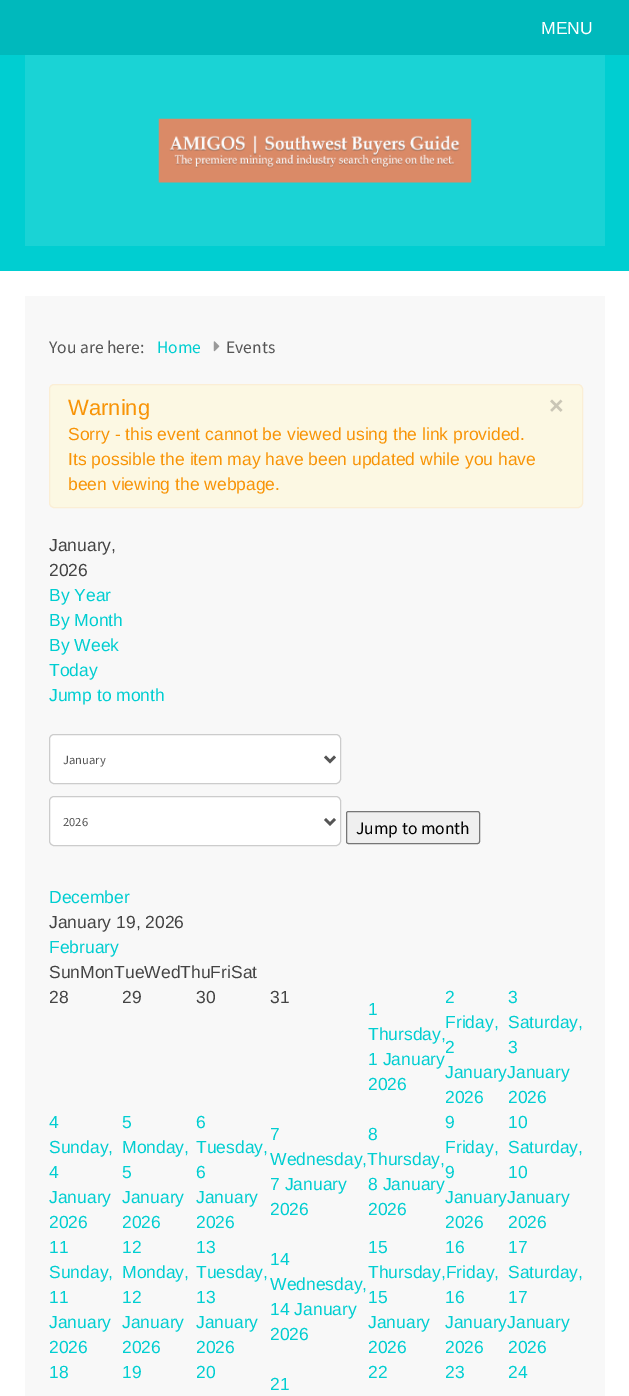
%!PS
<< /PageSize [629 1396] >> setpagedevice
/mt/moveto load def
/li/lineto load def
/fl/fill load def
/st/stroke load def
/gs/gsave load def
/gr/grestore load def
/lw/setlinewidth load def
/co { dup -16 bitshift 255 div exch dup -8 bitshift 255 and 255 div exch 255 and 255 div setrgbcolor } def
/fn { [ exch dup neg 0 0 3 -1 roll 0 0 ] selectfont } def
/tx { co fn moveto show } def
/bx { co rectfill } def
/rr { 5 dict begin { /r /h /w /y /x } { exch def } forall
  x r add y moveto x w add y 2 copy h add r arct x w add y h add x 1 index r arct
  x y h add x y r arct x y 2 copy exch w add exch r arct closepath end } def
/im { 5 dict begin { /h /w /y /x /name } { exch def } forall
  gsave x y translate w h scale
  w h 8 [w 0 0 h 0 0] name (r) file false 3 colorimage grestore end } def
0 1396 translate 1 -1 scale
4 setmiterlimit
0 0 629 1396 16#FFFFFF bx
0 0 629 55 16#00B9BC bx
0 55 629 216 16#00CED1 bx
25 55 580 191 16#1AD3D5 bx
(media/1.raw) 158 118 314 65 im
25 296 580 1100 16#F8F8F8 bx
(media/2.raw) 213 341 7 11 im
16#FCF8E3 co
49.5 384.5 533 123 4.5 rr gs fl gr
16#FBEED5 co
st
16#FFFFFF co
49.5 734.5 291 49 4.5 rr gs fl gr
16#CCCCCC co
st
16#555555 co
2.5 lw
325 756.5 mt 330 761.5 li 335 756.5 li st
16#FFFFFF co
49.5 796.5 291 49 4.5 rr gs fl gr
16#CCCCCC co
1 lw
st
16#555555 co
2.5 lw
325 819 mt 330 824 li 335 819 li st
16#EFEFEF co
346.5 811.5 133 32 2 rr gs fl gr
16#767676 co
1 lw
st
(MENU) 541 34 /LiberationSans-Regular 17.5 16#FFFFFF tx
(You are here:) 49 353 /SourceSansPro-Regular 17.5 16#555555 tx
(Home) 157 353 /SourceSansPro-Regular 17.5 16#00CED1 tx
(Events) 226 353 /SourceSansPro-Regular 17.5 16#555555 tx
(Warning) 68 415 /LiberationSans-Regular 22 16#F89406 tx
(×) 549 414 /LiberationSans-Bold 25 16#CAC6B6 tx
(Sorry - this event cannot be viewed using the link provided.) 68 440 /LiberationSans-Regular 17.5 16#F89406 tx
(Its possible the item may have been updated while you have) 68 465 /LiberationSans-Regular 17.5 16#F89406 tx
(been viewing the webpage.) 68 490 /LiberationSans-Regular 17.5 16#F89406 tx
(January,) 49 551 /LiberationSans-Regular 17.5 16#444444 tx
(2026) 49 576 /LiberationSans-Regular 17.5 16#444444 tx
(By Year) 49 601 /LiberationSans-Regular 17.5 16#00CED1 tx
(By Month) 49 626 /LiberationSans-Regular 17.5 16#00CED1 tx
(By Week) 49 651 /LiberationSans-Regular 17.5 16#00CED1 tx
(Today) 49 676 /LiberationSans-Regular 17.5 16#00CED1 tx
(Jump to month) 49 701 /LiberationSans-Regular 17.5 16#00CED1 tx
(January) 63 764 /SourceSansPro-Regular 12.5 16#555555 tx
(2026) 63 826 /SourceSansPro-Regular 12.5 16#555555 tx
(Jump to month) 356 834 /SourceSansPro-Regular 17.5 16#000000 tx
(December) 49 903 /LiberationSans-Regular 17.5 16#00CED1 tx
(January 19, 2026) 49 928 /LiberationSans-Regular 17.5 16#444444 tx
(February) 49 953 /LiberationSans-Regular 17.5 16#00CED1 tx
(SunMonTueWedThuFriSat) 49 978 /LiberationSans-Regular 17.5 16#444444 tx
(28) 49 1003 /LiberationSans-Regular 17.5 16#444444 tx
(29) 122 1003 /LiberationSans-Regular 17.5 16#444444 tx
(30) 196 1003 /LiberationSans-Regular 17.5 16#444444 tx
(31) 270 1003 /LiberationSans-Regular 17.5 16#444444 tx
(2) 445 1003 /LiberationSans-Regular 17.5 16#00CED1 tx
(Friday,) 445 1028 /LiberationSans-Regular 17.5 16#00CED1 tx
(2) 445 1053 /LiberationSans-Regular 17.5 16#00CED1 tx
(JanuaryJanuary) 445 1078 /LiberationSans-Regular 17.5 16#00CED1 tx
(2026) 445 1103 /LiberationSans-Regular 17.5 16#00CED1 tx
(1) 368 1015 /LiberationSans-Regular 17.5 16#00CED1 tx
(Thursday,) 368 1040 /LiberationSans-Regular 17.5 16#00CED1 tx
(1 January) 368 1065 /LiberationSans-Regular 17.5 16#00CED1 tx
(2026) 368 1090 /LiberationSans-Regular 17.5 16#00CED1 tx
(3) 508 1003 /LiberationSans-Regular 17.5 16#00CED1 tx
(Saturday,) 508 1028 /LiberationSans-Regular 17.5 16#00CED1 tx
(3) 508 1053 /LiberationSans-Regular 17.5 16#00CED1 tx
(2026) 508 1103 /LiberationSans-Regular 17.5 16#00CED1 tx
(4) 49 1128 /LiberationSans-Regular 17.5 16#00CED1 tx
(Sunday,) 49 1153 /LiberationSans-Regular 17.5 16#00CED1 tx
(4) 49 1178 /LiberationSans-Regular 17.5 16#00CED1 tx
(January) 49 1203 /LiberationSans-Regular 17.5 16#00CED1 tx
(2026) 49 1228 /LiberationSans-Regular 17.5 16#00CED1 tx
(5) 122 1128 /LiberationSans-Regular 17.5 16#00CED1 tx
(Monday,) 122 1153 /LiberationSans-Regular 17.5 16#00CED1 tx
(5) 122 1178 /LiberationSans-Regular 17.5 16#00CED1 tx
(January) 122 1203 /LiberationSans-Regular 17.5 16#00CED1 tx
(2026) 122 1228 /LiberationSans-Regular 17.5 16#00CED1 tx
(6) 196 1128 /LiberationSans-Regular 17.5 16#00CED1 tx
(Tuesday,) 196 1153 /LiberationSans-Regular 17.5 16#00CED1 tx
(6) 196 1178 /LiberationSans-Regular 17.5 16#00CED1 tx
(January) 196 1203 /LiberationSans-Regular 17.5 16#00CED1 tx
(2026) 196 1228 /LiberationSans-Regular 17.5 16#00CED1 tx
(9) 445 1128 /LiberationSans-Regular 17.5 16#00CED1 tx
(Friday,) 445 1153 /LiberationSans-Regular 17.5 16#00CED1 tx
(9) 445 1178 /LiberationSans-Regular 17.5 16#00CED1 tx
(JanuaryJanuary) 445 1203 /LiberationSans-Regular 17.5 16#00CED1 tx
(2026) 445 1228 /LiberationSans-Regular 17.5 16#00CED1 tx
(7) 270 1140 /LiberationSans-Regular 17.5 16#00CED1 tx
(Wednesday,Thursday,) 270 1165 /LiberationSans-Regular 17.5 16#00CED1 tx
(7 January) 270 1190 /LiberationSans-Regular 17.5 16#00CED1 tx
(2026) 270 1215 /LiberationSans-Regular 17.5 16#00CED1 tx
(10) 508 1128 /LiberationSans-Regular 17.5 16#00CED1 tx
(Saturday,) 508 1153 /LiberationSans-Regular 17.5 16#00CED1 tx
(10) 508 1178 /LiberationSans-Regular 17.5 16#00CED1 tx
(2026) 508 1228 /LiberationSans-Regular 17.5 16#00CED1 tx
(8) 368 1140 /LiberationSans-Regular 17.5 16#00CED1 tx
(8 January) 368 1190 /LiberationSans-Regular 17.5 16#00CED1 tx
(2026) 368 1215 /LiberationSans-Regular 17.5 16#00CED1 tx
(11) 49 1253 /LiberationSans-Regular 17.5 16#00CED1 tx
(Sunday,) 49 1278 /LiberationSans-Regular 17.5 16#00CED1 tx
(11) 49 1303 /LiberationSans-Regular 17.5 16#00CED1 tx
(January) 49 1328 /LiberationSans-Regular 17.5 16#00CED1 tx
(2026) 49 1353 /LiberationSans-Regular 17.5 16#00CED1 tx
(12) 122 1253 /LiberationSans-Regular 17.5 16#00CED1 tx
(Monday,) 122 1278 /LiberationSans-Regular 17.5 16#00CED1 tx
(12) 122 1303 /LiberationSans-Regular 17.5 16#00CED1 tx
(January) 122 1328 /LiberationSans-Regular 17.5 16#00CED1 tx
(2026) 122 1353 /LiberationSans-Regular 17.5 16#00CED1 tx
(13) 196 1253 /LiberationSans-Regular 17.5 16#00CED1 tx
(Tuesday,) 196 1278 /LiberationSans-Regular 17.5 16#00CED1 tx
(13) 196 1303 /LiberationSans-Regular 17.5 16#00CED1 tx
(January) 196 1328 /LiberationSans-Regular 17.5 16#00CED1 tx
(2026) 196 1353 /LiberationSans-Regular 17.5 16#00CED1 tx
(15) 368 1253 /LiberationSans-Regular 17.5 16#00CED1 tx
(Thursday,Friday,) 368 1278 /LiberationSans-Regular 17.5 16#00CED1 tx
(15) 368 1303 /LiberationSans-Regular 17.5 16#00CED1 tx
(January) 368 1328 /LiberationSans-Regular 17.5 16#00CED1 tx
(2026) 368 1353 /LiberationSans-Regular 17.5 16#00CED1 tx
(16) 445 1253 /LiberationSans-Regular 17.5 16#00CED1 tx
(16) 445 1303 /LiberationSans-Regular 17.5 16#00CED1 tx
(JanuaryJanuary) 445 1328 /LiberationSans-Regular 17.5 16#00CED1 tx
(2026) 445 1353 /LiberationSans-Regular 17.5 16#00CED1 tx
(14) 270 1265 /LiberationSans-Regular 17.5 16#00CED1 tx
(Wednesday,) 270 1290 /LiberationSans-Regular 17.5 16#00CED1 tx
(14 January) 270 1315 /LiberationSans-Regular 17.5 16#00CED1 tx
(2026) 270 1340 /LiberationSans-Regular 17.5 16#00CED1 tx
(17) 508 1253 /LiberationSans-Regular 17.5 16#00CED1 tx
(Saturday,) 508 1278 /LiberationSans-Regular 17.5 16#00CED1 tx
(17) 508 1303 /LiberationSans-Regular 17.5 16#00CED1 tx
(2026) 508 1353 /LiberationSans-Regular 17.5 16#00CED1 tx
(18) 49 1378 /LiberationSans-Regular 17.5 16#00CED1 tx
(19) 122 1378 /LiberationSans-Regular 17.5 16#00CED1 tx
(20) 196 1378 /LiberationSans-Regular 17.5 16#00CED1 tx
(22) 368 1378 /LiberationSans-Regular 17.5 16#00CED1 tx
(23) 445 1378 /LiberationSans-Regular 17.5 16#00CED1 tx
(24) 508 1378 /LiberationSans-Regular 17.5 16#00CED1 tx
(21) 270 1390 /LiberationSans-Regular 17.5 16#00CED1 tx
showpage
